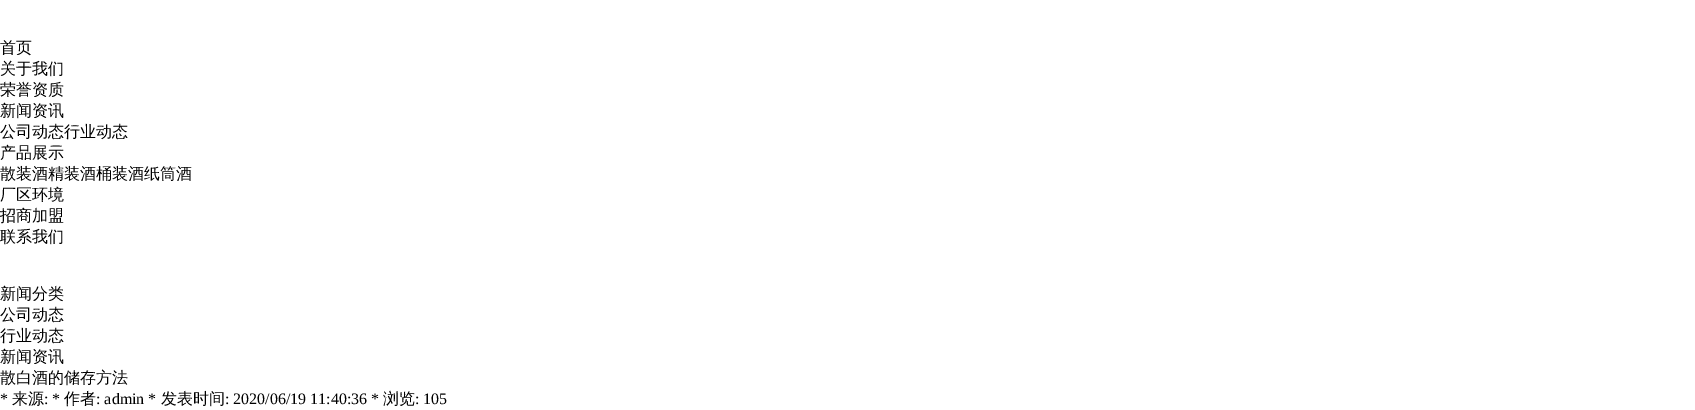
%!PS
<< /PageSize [1695 410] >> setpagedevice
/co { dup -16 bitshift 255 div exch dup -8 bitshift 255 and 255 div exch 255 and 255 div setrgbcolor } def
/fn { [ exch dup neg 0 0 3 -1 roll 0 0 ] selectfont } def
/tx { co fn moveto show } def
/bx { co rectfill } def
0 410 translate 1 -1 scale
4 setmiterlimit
0 0 1695 410 16#FFFFFF bx
(首页) 0 53 /WenQuanYiZenHei-Medium 16 16#000000 tx
(关于我们) 0 74 /WenQuanYiZenHei-Medium 16 16#000000 tx
(荣誉资质) 0 95 /WenQuanYiZenHei-Medium 16 16#000000 tx
(新闻资讯) 0 116 /WenQuanYiZenHei-Medium 16 16#000000 tx
(公司动态行业动态) 0 137 /WenQuanYiZenHei-Medium 16 16#000000 tx
(产品展示) 0 158 /WenQuanYiZenHei-Medium 16 16#000000 tx
(散装酒精装酒桶装酒纸筒酒) 0 179 /WenQuanYiZenHei-Medium 16 16#000000 tx
(厂区环境) 0 200 /WenQuanYiZenHei-Medium 16 16#000000 tx
(招商加盟) 0 221 /WenQuanYiZenHei-Medium 16 16#000000 tx
(联系我们) 0 242 /WenQuanYiZenHei-Medium 16 16#000000 tx
(新闻分类) 0 299 /WenQuanYiZenHei-Medium 16 16#000000 tx
(公司动态) 0 320 /WenQuanYiZenHei-Medium 16 16#000000 tx
(行业动态) 0 341 /WenQuanYiZenHei-Medium 16 16#000000 tx
(新闻资讯) 0 362 /WenQuanYiZenHei-Medium 16 16#000000 tx
(散白酒的储存方法) 0 383 /WenQuanYiZenHei-Medium 16 16#000000 tx
(*) 0 404 /LiberationSerif-Regular 16 16#000000 tx
(来源) 12 404 /WenQuanYiZenHei-Medium 16 16#000000 tx
(: *) 44 404 /LiberationSerif-Regular 16 16#000000 tx
(作者) 64 404 /WenQuanYiZenHei-Medium 16 16#000000 tx
(: admin *) 96 404 /LiberationSerif-Regular 16 16#000000 tx
(发表时间) 161 404 /WenQuanYiZenHei-Medium 16 16#000000 tx
(: 2020/06/19 11:40:36 *) 225 404 /LiberationSerif-Regular 16 16#000000 tx
(浏览) 383 404 /WenQuanYiZenHei-Medium 16 16#000000 tx
(: 105) 415 404 /LiberationSerif-Regular 16 16#000000 tx
showpage
